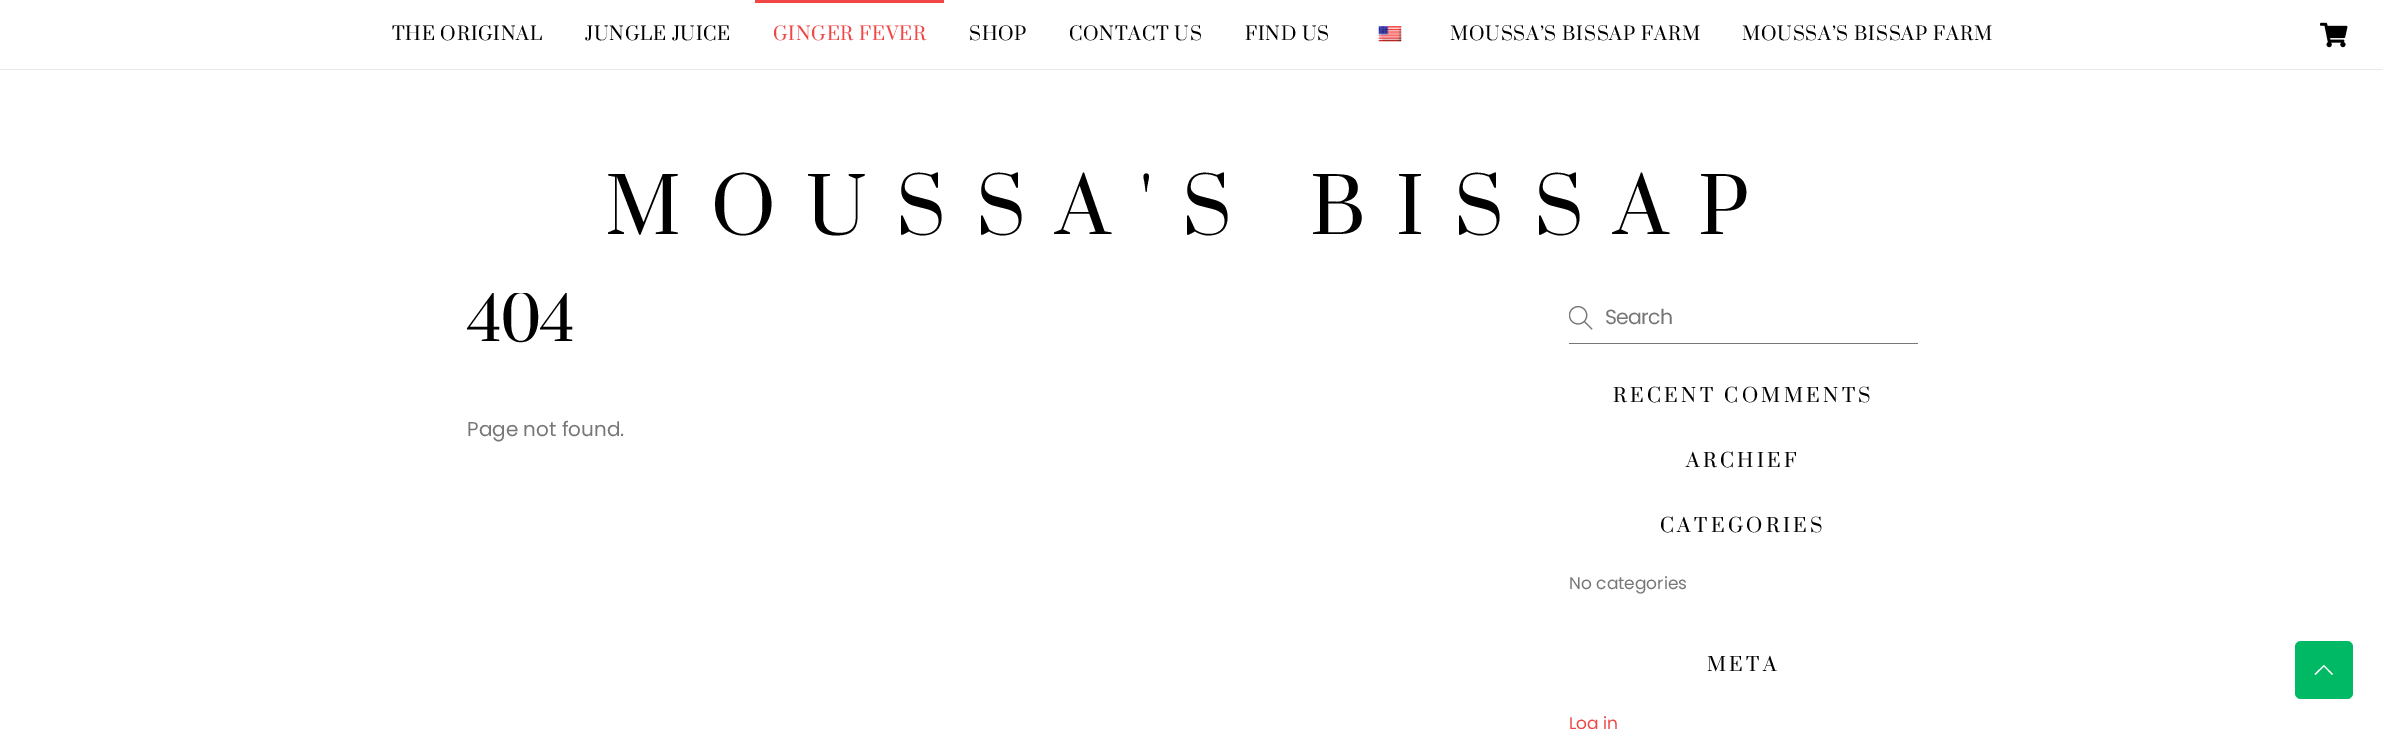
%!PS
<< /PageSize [2383 729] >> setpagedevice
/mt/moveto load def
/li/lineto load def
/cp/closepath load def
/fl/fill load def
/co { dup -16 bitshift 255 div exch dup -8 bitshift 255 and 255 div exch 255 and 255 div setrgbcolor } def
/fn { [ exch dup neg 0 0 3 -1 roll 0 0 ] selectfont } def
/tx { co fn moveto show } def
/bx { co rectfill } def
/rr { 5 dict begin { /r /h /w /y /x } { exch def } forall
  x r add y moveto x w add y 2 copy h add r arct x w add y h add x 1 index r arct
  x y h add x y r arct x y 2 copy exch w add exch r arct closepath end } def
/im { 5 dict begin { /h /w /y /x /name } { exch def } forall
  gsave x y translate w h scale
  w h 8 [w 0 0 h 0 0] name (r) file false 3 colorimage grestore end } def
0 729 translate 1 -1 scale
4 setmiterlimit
0 0 2383 729 16#FFFFFF bx
0 69 2383 1 16#E9E9E9 bx
755 0 189 3 16#F04646 bx
(media/1.raw) 1378 26 24 16 im
(media/2.raw) 2320 22 28 26 im
1569 343 349 1 16#777777 bx
(media/3.raw) 1569 306 24 24 im
16#00B964 co
2295 641 58 58 6 rr fl
16#FFFFFF co
2333 674 mt 2324 665 li 2314.5 674 li 2315.5 675 li 2324 666.5 li 2332 675 li cp fl
/Prata-Regular 18 fn
16#000000 co
392 40 mt .75 0 (THE ORIGINAL) ashow
585 40 mt .75 0 (JUNGLE JUICE) ashow
16#F04646 co
773 40 mt .75 0 (GINGER FEVER) ashow
16#000000 co
969 40 mt .75 0 (SHOP) ashow
1069 40 mt .75 0 (CONTACT US) ashow
1245 40 mt .75 0 (FIND US) ashow
1450 40 mt .75 0 (MOUSSA’S BISSAP FARM) ashow
1742 40 mt .75 0 (MOUSSA’S BISSAP FARM) ashow
/Prata-Regular 75 fn
605 234 mt 30 0 (MOUSSA'S BISSAP) ashow
/Prata-Regular 60 fn
467 341 mt -2 0 (404) ashow
515 291 13 2 16#FFFFFF bx
(Page not found.) 467 436 /Poppins-Regular 20 16#777777 tx
/Poppins-Regular 20.5 fn
1605 324 mt -.75 0 (Search) ashow
/Prata-Regular 18.75 fn
16#000000 co
1613 402 mt 3.4 0 (RECENT COMMENTS) ashow
1686 467 mt 3.4 0 (ARCHIEF) ashow
1660 532 mt 3.4 0 (CATEGORIES) ashow
(No categories) 1569 589 /Poppins-Regular 17 16#777777 tx
/Prata-Regular 18.75 fn
16#000000 co
1707 671 mt 3.4 0 (META) ashow
(Log in) 1569 729 /Poppins-Regular 17 16#F04646 tx
showpage
